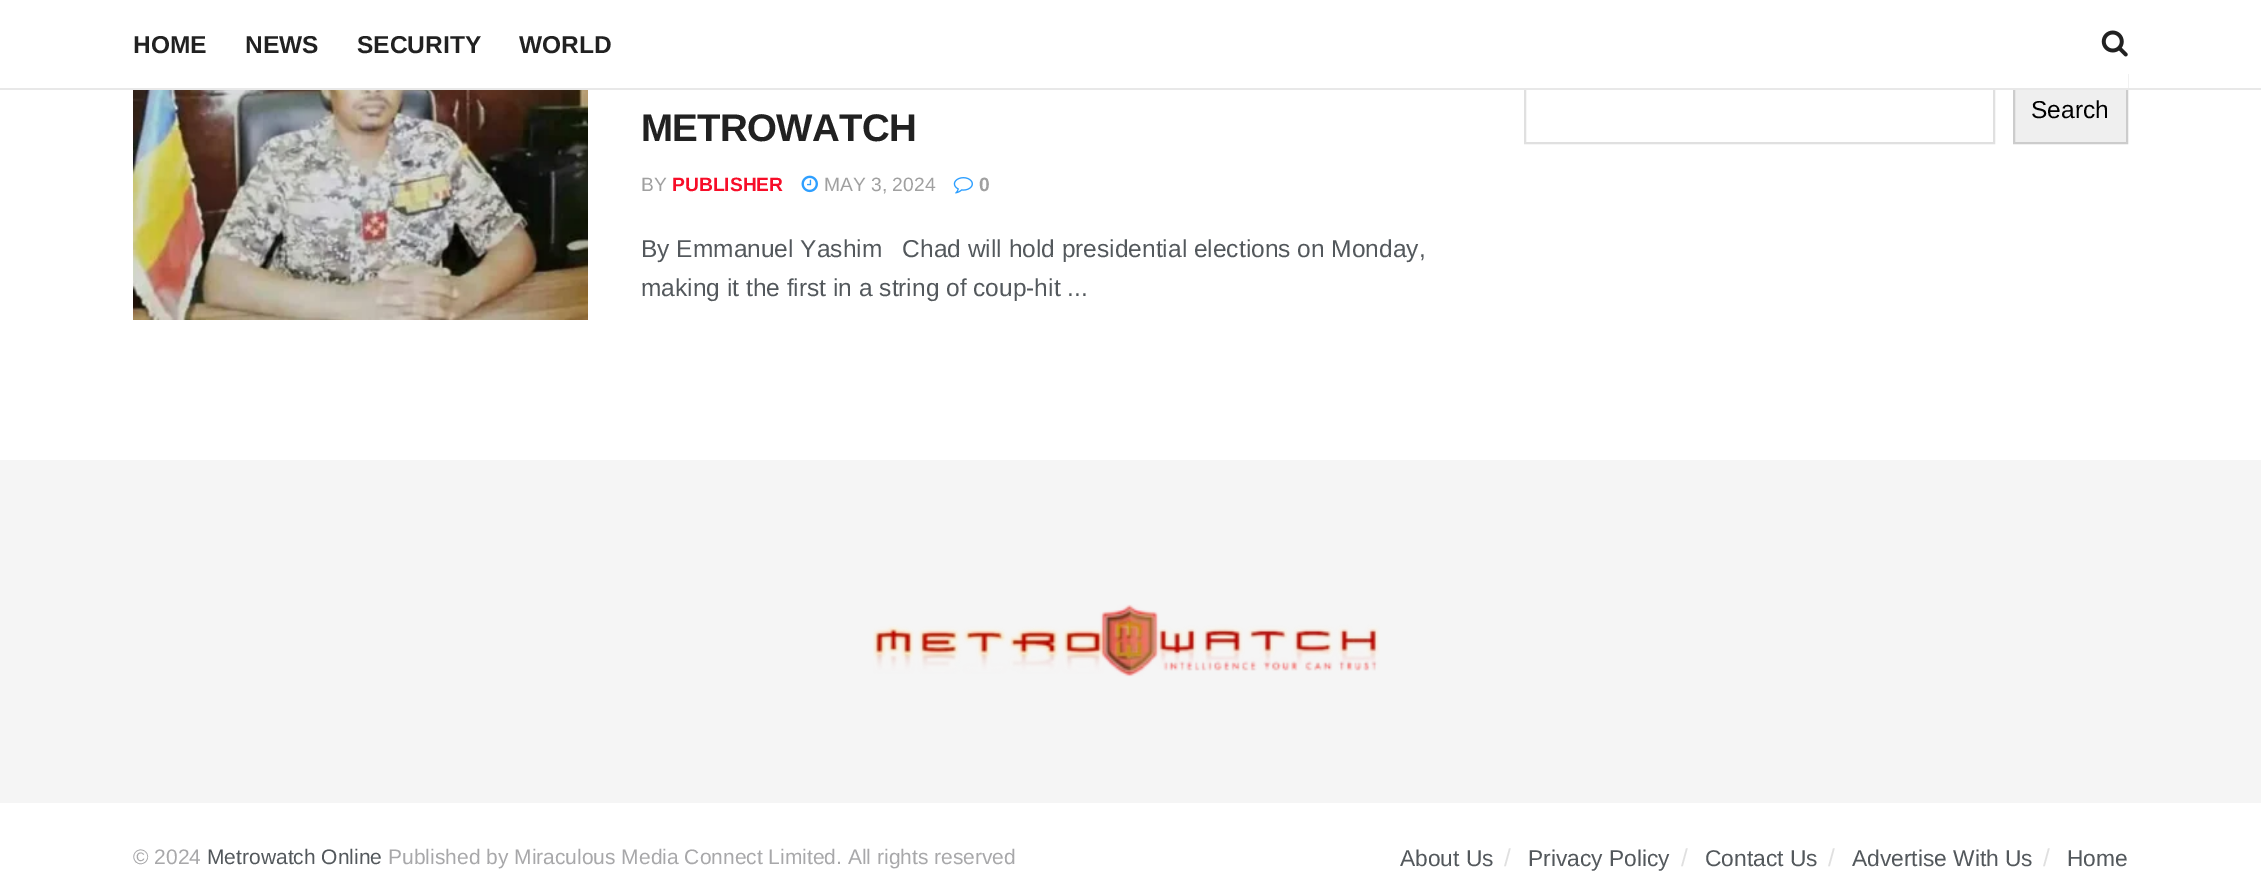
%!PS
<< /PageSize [2261 879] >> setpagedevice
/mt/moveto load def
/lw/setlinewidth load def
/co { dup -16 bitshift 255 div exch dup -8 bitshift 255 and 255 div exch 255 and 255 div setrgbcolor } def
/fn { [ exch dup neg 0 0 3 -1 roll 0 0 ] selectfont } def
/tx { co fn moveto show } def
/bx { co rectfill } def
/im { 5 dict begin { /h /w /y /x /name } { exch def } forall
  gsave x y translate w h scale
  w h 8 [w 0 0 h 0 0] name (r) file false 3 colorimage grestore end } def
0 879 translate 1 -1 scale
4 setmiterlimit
0 0 2261 879 16#FFFFFF bx
16#E0E0E0 co
2 lw
1525 75 469 68 rectstroke
2015 90 111 52 16#EFEFEF bx
16#CCCCCC co
2014 75 113 68 rectstroke
1524 74 604 14 16#FFFFFF bx
0 88 2261 2 16#E8E8E8 bx
(media/1.raw) 2101 30 27 27 im
(media/2.raw) 133 90 455 230 im
(media/3.raw) 801 175 17 18 im
(media/4.raw) 953 177 20 17 im
0 460 2261 343 16#F5F5F5 bx
(media/5.raw) 873 604 507 73 im
(HOME) 133 53 /LiberationSans-Bold 24.5 16#212121 tx
(NEWS) 245 53 /LiberationSans-Bold 24.5 16#212121 tx
(SECURITY) 357 53 /LiberationSans-Bold 24.5 16#212121 tx
(WORLD) 519 53 /LiberationSans-Bold 24.5 16#212121 tx
(Search) 2031 118 /LiberationSans-Regular 24.5 16#000000 tx
/LiberationSans-Bold 38.5 fn
16#212121 co
641 141 mt -.75 0 (METROWATCH) ashow
(BY) 641 191 /LiberationSans-Regular 19.25 16#A0A0A0 tx
(PUBLISHER) 672 191 /LiberationSans-Bold 19.25 16#F70D28 tx
(MAY 3, 2024) 824 191 /LiberationSans-Regular 19.25 16#A0A0A0 tx
(0) 979 191 /LiberationSans-Bold 19.25 16#A0A0A0 tx
(By Emmanuel Yashim   Chad will hold presidential elections on Monday,) 641 257 /LiberationSans-Regular 24.5 16#53585C tx
(making it the first in a string of coup-hit ...) 641 296 /LiberationSans-Regular 24.5 16#53585C tx
(© 2024) 133 864 /LiberationSans-Regular 21 16#A8A8AA tx
(Metrowatch Online) 207 864 /LiberationSans-Regular 21 16#53585C tx
(Published by Miraculous Media Connect Limited. All rights reserved) 388 864 /LiberationSans-Regular 21 16#A8A8AA tx
(About Us) 1400 866 /LiberationSans-Regular 22.75 16#53585C tx
(/) 1504 866 /LiberationSans-Regular 24.5 16#E0E0E0 tx
(Privacy Policy) 1528 866 /LiberationSans-Regular 22.75 16#53585C tx
(/) 1681 866 /LiberationSans-Regular 24.5 16#E0E0E0 tx
(Contact Us) 1705 866 /LiberationSans-Regular 22.75 16#53585C tx
(/) 1828 866 /LiberationSans-Regular 24.5 16#E0E0E0 tx
(Advertise With Us) 1852 866 /LiberationSans-Regular 22.75 16#53585C tx
(/) 2043 866 /LiberationSans-Regular 24.5 16#E0E0E0 tx
(Home) 2067 866 /LiberationSans-Regular 22.75 16#53585C tx
showpage
